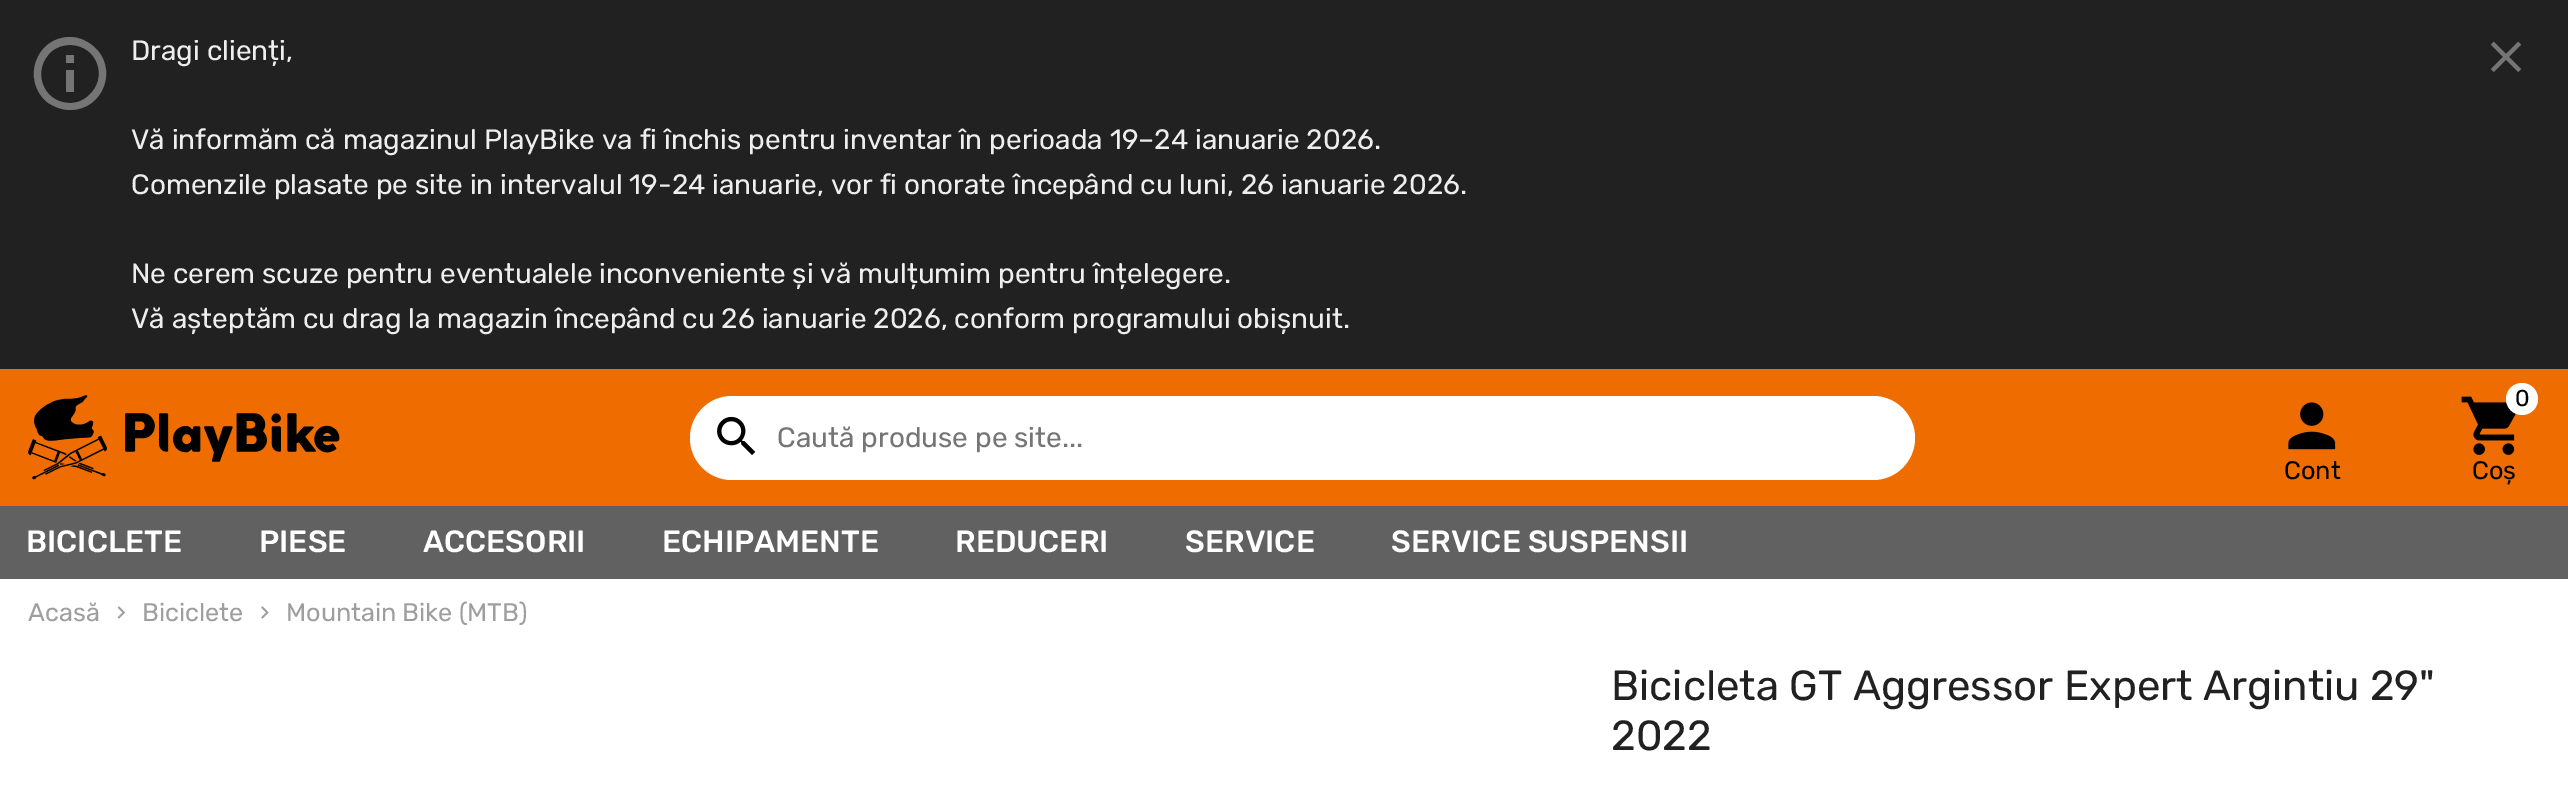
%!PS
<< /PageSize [2568 790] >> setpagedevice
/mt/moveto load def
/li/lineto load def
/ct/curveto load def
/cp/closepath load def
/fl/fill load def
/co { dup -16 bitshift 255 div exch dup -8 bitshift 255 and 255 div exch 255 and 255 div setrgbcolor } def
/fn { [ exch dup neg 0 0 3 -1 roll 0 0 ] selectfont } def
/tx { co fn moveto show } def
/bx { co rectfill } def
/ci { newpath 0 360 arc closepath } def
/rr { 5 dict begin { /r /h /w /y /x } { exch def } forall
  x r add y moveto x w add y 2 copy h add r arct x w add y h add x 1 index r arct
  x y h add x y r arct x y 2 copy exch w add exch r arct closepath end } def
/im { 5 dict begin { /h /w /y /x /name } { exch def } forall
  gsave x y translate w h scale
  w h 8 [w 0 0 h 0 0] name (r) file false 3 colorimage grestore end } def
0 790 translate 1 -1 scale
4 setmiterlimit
0 0 2568 790 16#FFFFFF bx
0 0 2568 369 16#212121 bx
16#757575 co
66 63 mt 66 55 li 74 55 li 74 63 li cp 70 103 mt 77 103 83 101 88 96 ct 109 79 98 45 70 45 ct 63 45 57 47 52 51 ct 31 69 42 103 70 103 ct cp 70 37 mt 78 37 86 40 93 46 ct 119 67 104 110 70 110 ct 62 110 54 107 47 102 ct 21 80 36 37 70 37 ct cp 66 92 mt 66 70 li 74 70 li 74 92 li cp fl
(media/1.raw) 2490 41 32 31 im
0 369 2568 137 16#EF6C00 bx
(media/2.raw) 28 395 312 85 im
16#FFFFFF co
690 396 1225 84 42 rr fl
(media/3.raw) 717 416 39 39 im
(media/4.raw) 2288 402 48 48 im
(media/5.raw) 2461 396 56 59 im
2522 399 16 ci fl
0 506 2568 73 16#616161 bx
(media/6.raw) 117 606 9 13 im
(media/7.raw) 261 606 8 13 im
(Dragi clienți,) 131 60 /Rubik-Regular 28 16#EEEEEE tx
(Vă informăm că magazinul PlayBike va fi închis pentru inventar în perioada 19–24 ianuarie 2026.) 131 149 /Rubik-Regular 28 16#EEEEEE tx
(Comenzile plasate pe site in intervalul 19-24 ianuarie, vor fi onorate începând cu luni, 26 ianuarie 2026.) 131 194 /Rubik-Regular 28 16#EEEEEE tx
(Ne cerem scuze pentru eventualele inconveniente și vă mulțumim pentru înțelegere.) 131 283 /Rubik-Regular 28 16#EEEEEE tx
(Vă așteptăm cu drag la magazin începând cu 26 ianuarie 2026, conform programului obișnuit.) 131 328 /Rubik-Regular 28 16#EEEEEE tx
(Caută produse pe site...) 777 447 /Rubik-Regular 28 16#757575 tx
(Cont) 2284 479 /Rubik-Regular 25.25 16#000000 tx
(0) 2515 406 /Rubik-Regular 23 16#000000 tx
(Coș) 2472 479 /Rubik-Regular 25.25 16#000000 tx
(BICICLETE) 26 552 /Rubik-Medium 30.75 16#FFFFFF tx
(PIESE) 259 552 /Rubik-Medium 30.75 16#FFFFFF tx
(ACCESORII) 423 552 /Rubik-Medium 30.75 16#FFFFFF tx
(ECHIPAMENTE) 662 552 /Rubik-Medium 30.75 16#FFFFFF tx
(REDUCERI) 955 552 /Rubik-Medium 30.75 16#FFFFFF tx
(SERVICE) 1185 552 /Rubik-Medium 30.75 16#FFFFFF tx
(SERVICE SUSPENSII) 1391 552 /Rubik-Medium 30.75 16#FFFFFF tx
(Acasă) 28 621 /Rubik-Regular 25.25 16#9E9E9E tx
(Biciclete) 142 621 /Rubik-Regular 25.25 16#9E9E9E tx
(Mountain Bike \(MTB\)) 286 621 /Rubik-Regular 25.25 16#9E9E9E tx
(Bicicleta GT Aggressor Expert Argintiu 29") 1611 700 /Rubik-Regular 42 16#212121 tx
(2022) 1611 750 /Rubik-Regular 42 16#212121 tx
showpage
